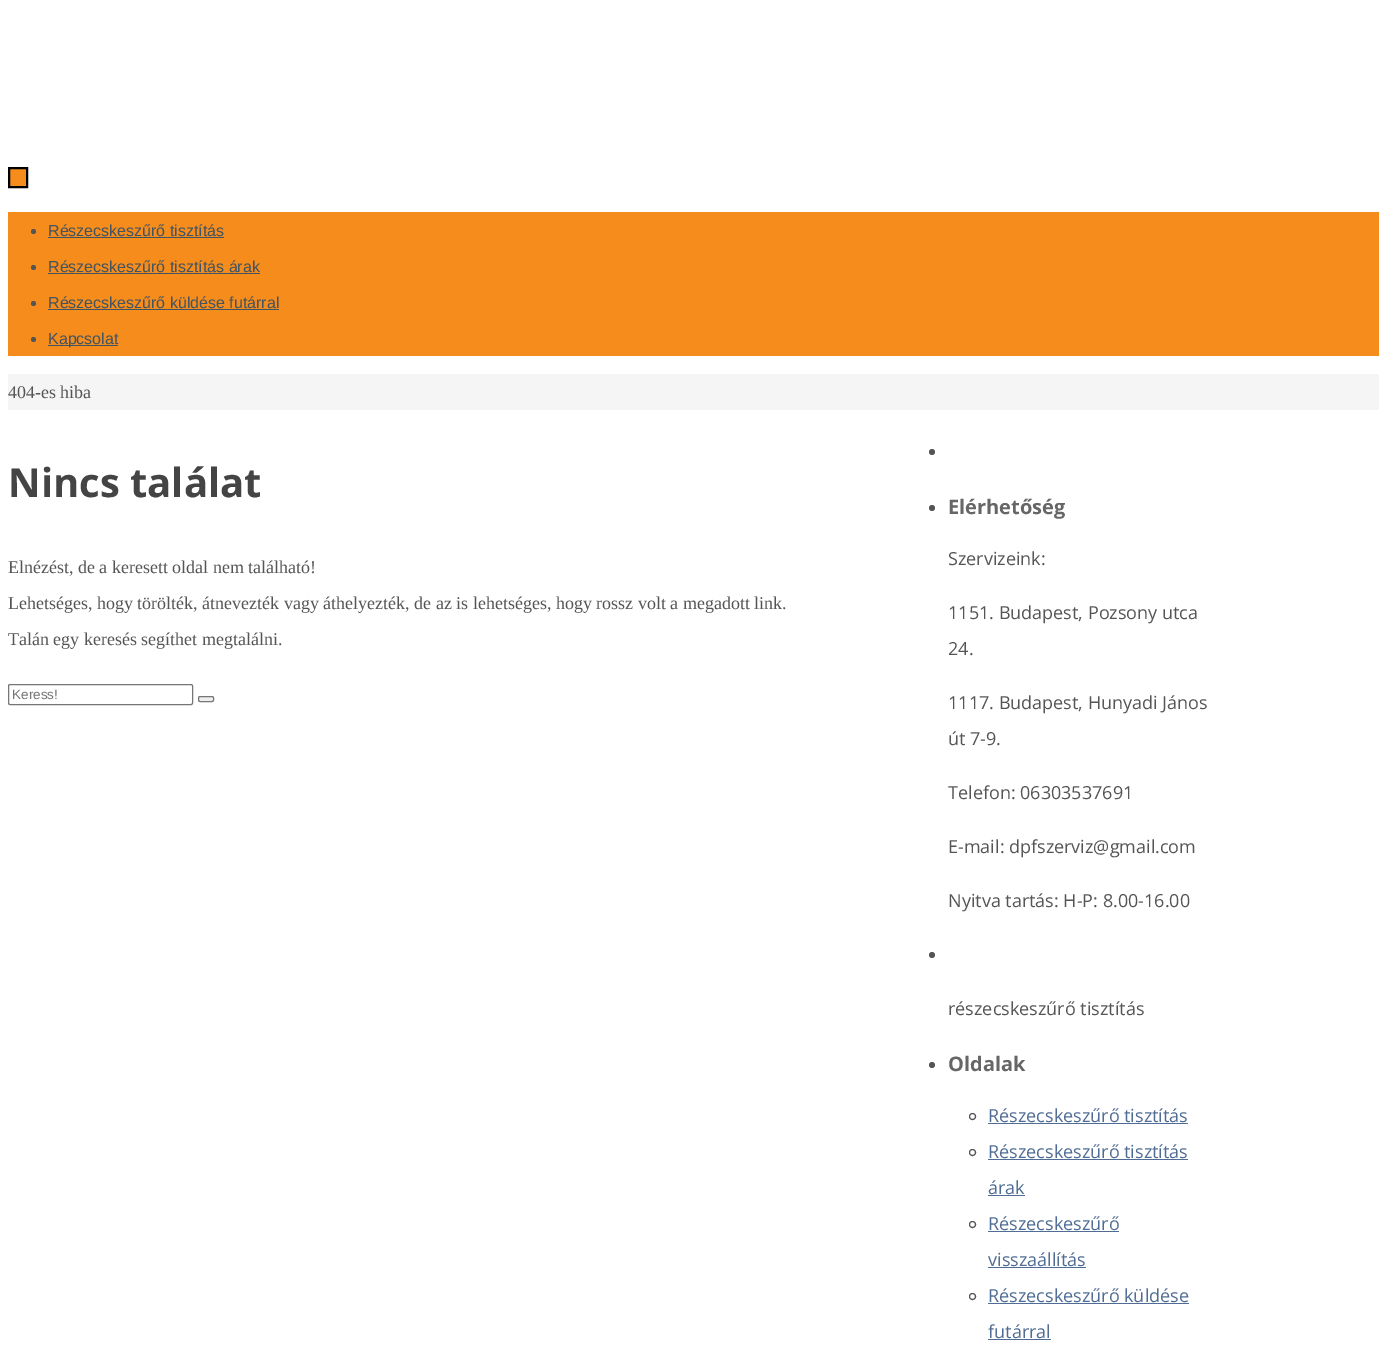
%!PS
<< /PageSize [1387 1360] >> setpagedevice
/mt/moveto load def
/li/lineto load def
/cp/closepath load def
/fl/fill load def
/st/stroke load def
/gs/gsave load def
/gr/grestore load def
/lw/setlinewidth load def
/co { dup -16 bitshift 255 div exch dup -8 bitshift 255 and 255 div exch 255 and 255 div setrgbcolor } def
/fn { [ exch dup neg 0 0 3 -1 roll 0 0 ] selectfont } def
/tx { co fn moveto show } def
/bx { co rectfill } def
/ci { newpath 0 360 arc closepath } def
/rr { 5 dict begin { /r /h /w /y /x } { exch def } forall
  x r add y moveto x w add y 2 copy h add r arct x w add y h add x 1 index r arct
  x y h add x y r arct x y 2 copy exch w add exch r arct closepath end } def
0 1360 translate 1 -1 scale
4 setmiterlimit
0 0 1387 1360 16#FFFFFF bx
16#F58C1C co
9 168 mt 27 168 li 27 187 li 9 187 li cp gs fl gr
16#000000 co
2 lw
st
8 212 1371 144 16#F58C1C bx
16#555555 co
33.5 231.5 2.5 ci fl
48 237 176 1 16#415462 bx
16#555555 co
33.5 267.5 2.5 ci fl
48 273 212 1 16#415462 bx
16#555555 co
33.5 303.5 2.5 ci fl
48 309 231 1 16#415462 bx
16#555555 co
33.5 339.5 2.5 ci fl
48 345 70 1 16#415462 bx
8 374 1371 36 16#F5F5F5 bx
16#767676 co
1 lw
8.5 684.5 184 20 1.5 rr st
16#EFEFEF co
198.5 696.5 15 5 1.5 rr gs fl gr
16#767676 co
st
16#555555 co
932 452 3 ci fl
932 508 3 ci fl
932 955 3 ci fl
932 1065 3 ci fl
972.5 1116.5 3 ci st
988 1123 200 1 16#4F6C94 bx
16#555555 co
972.5 1152.5 3 ci st
988 1159 200 1 16#4F6C94 bx
988 1195 37 1 16#4F6C94 bx
16#555555 co
972.5 1224.5 3 ci st
988 1231 131 1 16#4F6C94 bx
988 1267 98 1 16#4F6C94 bx
16#555555 co
972.5 1296.5 3 ci st
988 1303 201 1 16#4F6C94 bx
988 1339 63 1 16#4F6C94 bx
(Részecskeszűrő tisztítás) 48 236 /LiberationSans-Regular 16 16#415462 tx
(Részecskeszűrő tisztítás árak) 48 272 /LiberationSans-Regular 16 16#415462 tx
(Részecskeszűrő küldése futárral) 48 308 /LiberationSans-Regular 16 16#415462 tx
(Kapcsolat) 48 344 /LiberationSans-Regular 16 16#415462 tx
(404-es hiba) 8 398 /LiberationSerif-Regular 18 16#555555 tx
(Nincs találat) 8 497 /OpenSans-Bold 40 16#444444 tx
(Elnézést, de a keresett oldal nem található!) 8 573 /LiberationSerif-Regular 18 16#555555 tx
(Lehetséges, hogy törölték, átnevezték vagy áthelyezték, de az is lehetséges, hogy rossz volt a megadott link.) 8 609 /LiberationSerif-Regular 18 16#555555 tx
(Talán egy keresés segíthet megtalálni.) 8 645 /LiberationSerif-Regular 18 16#555555 tx
(Keress!) 12 699 /LiberationSans-Regular 13.5 16#757575 tx
(Elérhetőség) 948 514 /OpenSans-Bold 20 16#666666 tx
(Szervizeink:) 948 565 /OpenSans-Regular 18 16#555555 tx
(1151. Budapest, Pozsony utca) 948 619 /OpenSans-Regular 18 16#555555 tx
(24.) 948 655 /OpenSans-Regular 18 16#555555 tx
(1117. Budapest, Hunyadi János) 948 709 /OpenSans-Regular 18 16#555555 tx
(út 7-9.) 948 745 /OpenSans-Regular 18 16#555555 tx
(Telefon: 06303537691) 948 799 /OpenSans-Regular 18 16#555555 tx
(E-mail: dpfszerviz@gmail.com) 948 853 /OpenSans-Regular 18 16#555555 tx
(Nyitva tartás: H-P: 8.00-16.00) 948 907 /OpenSans-Regular 18 16#555555 tx
(részecskeszűrő tisztítás) 948 1015 /OpenSans-Regular 18 16#555555 tx
(Oldalak) 948 1071 /OpenSans-Bold 20 16#666666 tx
(Részecskeszűrő tisztítás) 988 1122 /OpenSans-Regular 18 16#4F6C94 tx
(Részecskeszűrő tisztítás) 988 1158 /OpenSans-Regular 18 16#4F6C94 tx
(árak) 988 1194 /OpenSans-Regular 18 16#4F6C94 tx
(Részecskeszűrő) 988 1230 /OpenSans-Regular 18 16#4F6C94 tx
(visszaállítás) 988 1266 /OpenSans-Regular 18 16#4F6C94 tx
(Részecskeszűrő küldése) 988 1302 /OpenSans-Regular 18 16#4F6C94 tx
(futárral) 988 1338 /OpenSans-Regular 18 16#4F6C94 tx
showpage
